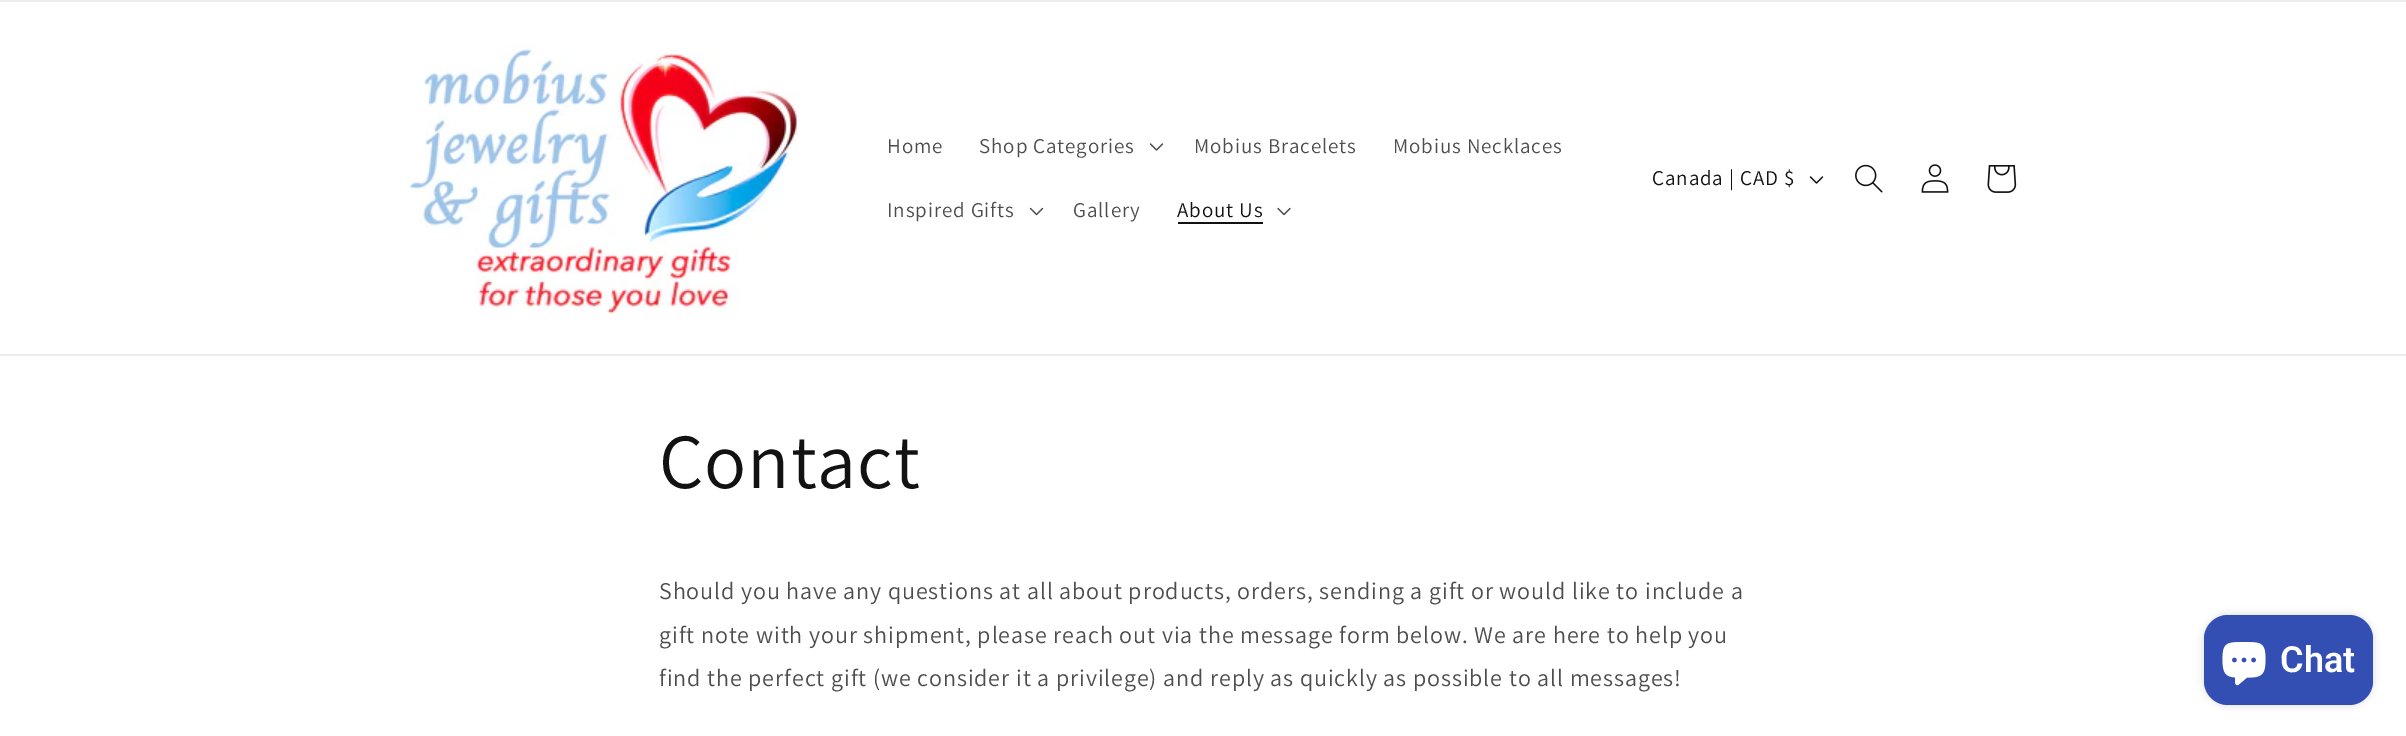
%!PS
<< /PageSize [2406 736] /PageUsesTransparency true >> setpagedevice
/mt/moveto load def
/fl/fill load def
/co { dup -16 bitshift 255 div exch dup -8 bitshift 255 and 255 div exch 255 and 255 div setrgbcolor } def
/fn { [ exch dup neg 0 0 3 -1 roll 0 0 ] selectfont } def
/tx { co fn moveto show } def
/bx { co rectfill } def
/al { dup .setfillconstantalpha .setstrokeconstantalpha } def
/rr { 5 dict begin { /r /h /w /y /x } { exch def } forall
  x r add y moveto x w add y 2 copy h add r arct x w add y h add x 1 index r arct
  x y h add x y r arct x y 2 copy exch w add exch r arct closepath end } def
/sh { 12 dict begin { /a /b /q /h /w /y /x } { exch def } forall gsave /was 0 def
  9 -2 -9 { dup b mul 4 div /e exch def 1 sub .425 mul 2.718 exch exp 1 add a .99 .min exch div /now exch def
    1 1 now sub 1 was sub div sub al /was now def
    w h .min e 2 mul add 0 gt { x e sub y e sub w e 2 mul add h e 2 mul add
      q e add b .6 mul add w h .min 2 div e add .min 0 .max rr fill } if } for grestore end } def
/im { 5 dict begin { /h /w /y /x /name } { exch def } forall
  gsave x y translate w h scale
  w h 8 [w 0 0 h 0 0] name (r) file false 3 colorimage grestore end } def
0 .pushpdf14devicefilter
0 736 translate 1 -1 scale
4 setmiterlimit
0 0 2406 736 16#FFFFFF bx
0 0 2406 2 16#ECECEC bx
0 354 2406 2 16#ECECEC bx
(media/1.raw) 404 44 395 270 im
(media/2.raw) 1149 143 15 8 im
(media/3.raw) 1029 207 15 9 im
1178 222 85 2 16#121212 bx
(media/4.raw) 1277 207 14 9 im
(media/5.raw) 1809 176 15 8 im
(media/6.raw) 1855 164 28 29 im
(media/7.raw) 1921 164 28 29 im
(media/8.raw) 1987 165 30 28 im
16#000000 co
2204 615 169 90 24 4 .15 sh
16#334FB4 co
2204 615 169 90 24 rr fl
(media/9.raw) 2222 642 44 44 im
/Assistant-Regular 21 fn
16#4D4D4D co
887 153 mt .9 0 (Home) ashow
979 153 mt .9 0 (Shop Categories) ashow
1194 153 mt .9 0 (Mobius Bracelets) ashow
1393 153 mt .9 0 (Mobius Necklaces) ashow
887 217 mt .9 0 (Inspired Gifts) ashow
1073 217 mt .9 0 (Gallery) ashow
16#121212 co
1177 217 mt .9 0 (About Us) ashow
1652 185 mt .9 0 (Canada | CAD $) ashow
/Assistant-Regular 78 fn
659 488 mt .9 0 (Contact) ashow
/Assistant-Regular 24 fn
16#4D4D4D co
659 599 mt .9 0 (Should you have any questions at all about products, orders, sending a gift or would like to include a) ashow
659 643 mt .9 0 (gift note with your shipment, please reach out via the message form below. We are here to help you) ashow
659 686 mt .9 0 (find the perfect gift \(we consider it a privilege\) and reply as quickly as possible to all messages!) ashow
(Chat) 2280 672 /Roboto-SemiBold 36 16#FFFFFF tx
.poppdf14devicefilter showpage
